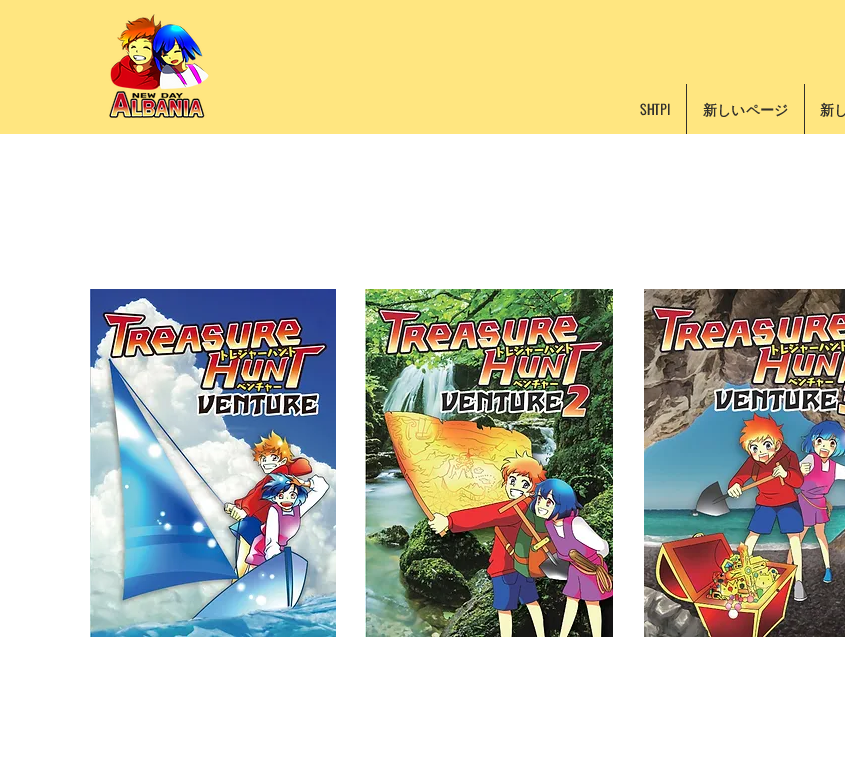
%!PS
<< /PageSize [845 760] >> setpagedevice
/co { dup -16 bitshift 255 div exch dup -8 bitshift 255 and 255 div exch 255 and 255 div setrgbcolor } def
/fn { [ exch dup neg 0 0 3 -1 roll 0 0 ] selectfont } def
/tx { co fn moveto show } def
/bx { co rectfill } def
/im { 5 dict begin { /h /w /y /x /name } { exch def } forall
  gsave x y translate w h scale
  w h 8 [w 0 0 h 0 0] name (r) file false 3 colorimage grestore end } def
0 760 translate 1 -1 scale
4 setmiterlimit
0 0 845 760 16#FFE680 bx
(media/1.raw) 109 14 100 104 im
686 84 1 50 16#31302C bx
804 84 1 50 16#31302C bx
0 134 845 626 16#FFFFFF bx
(media/2.raw) 90 289 246 348 im
(media/3.raw) 365 289 248 348 im
(media/4.raw) 644 289 201 348 im
(SHTPI) 640 115 /Oswald-Regular 14 16#31302C tx
(新しいページ) 703 115 /WenQuanYiZenHei-Bold 14 16#31302C tx
(新し) 820 115 /WenQuanYiZenHei-Bold 14 16#31302C tx
showpage
